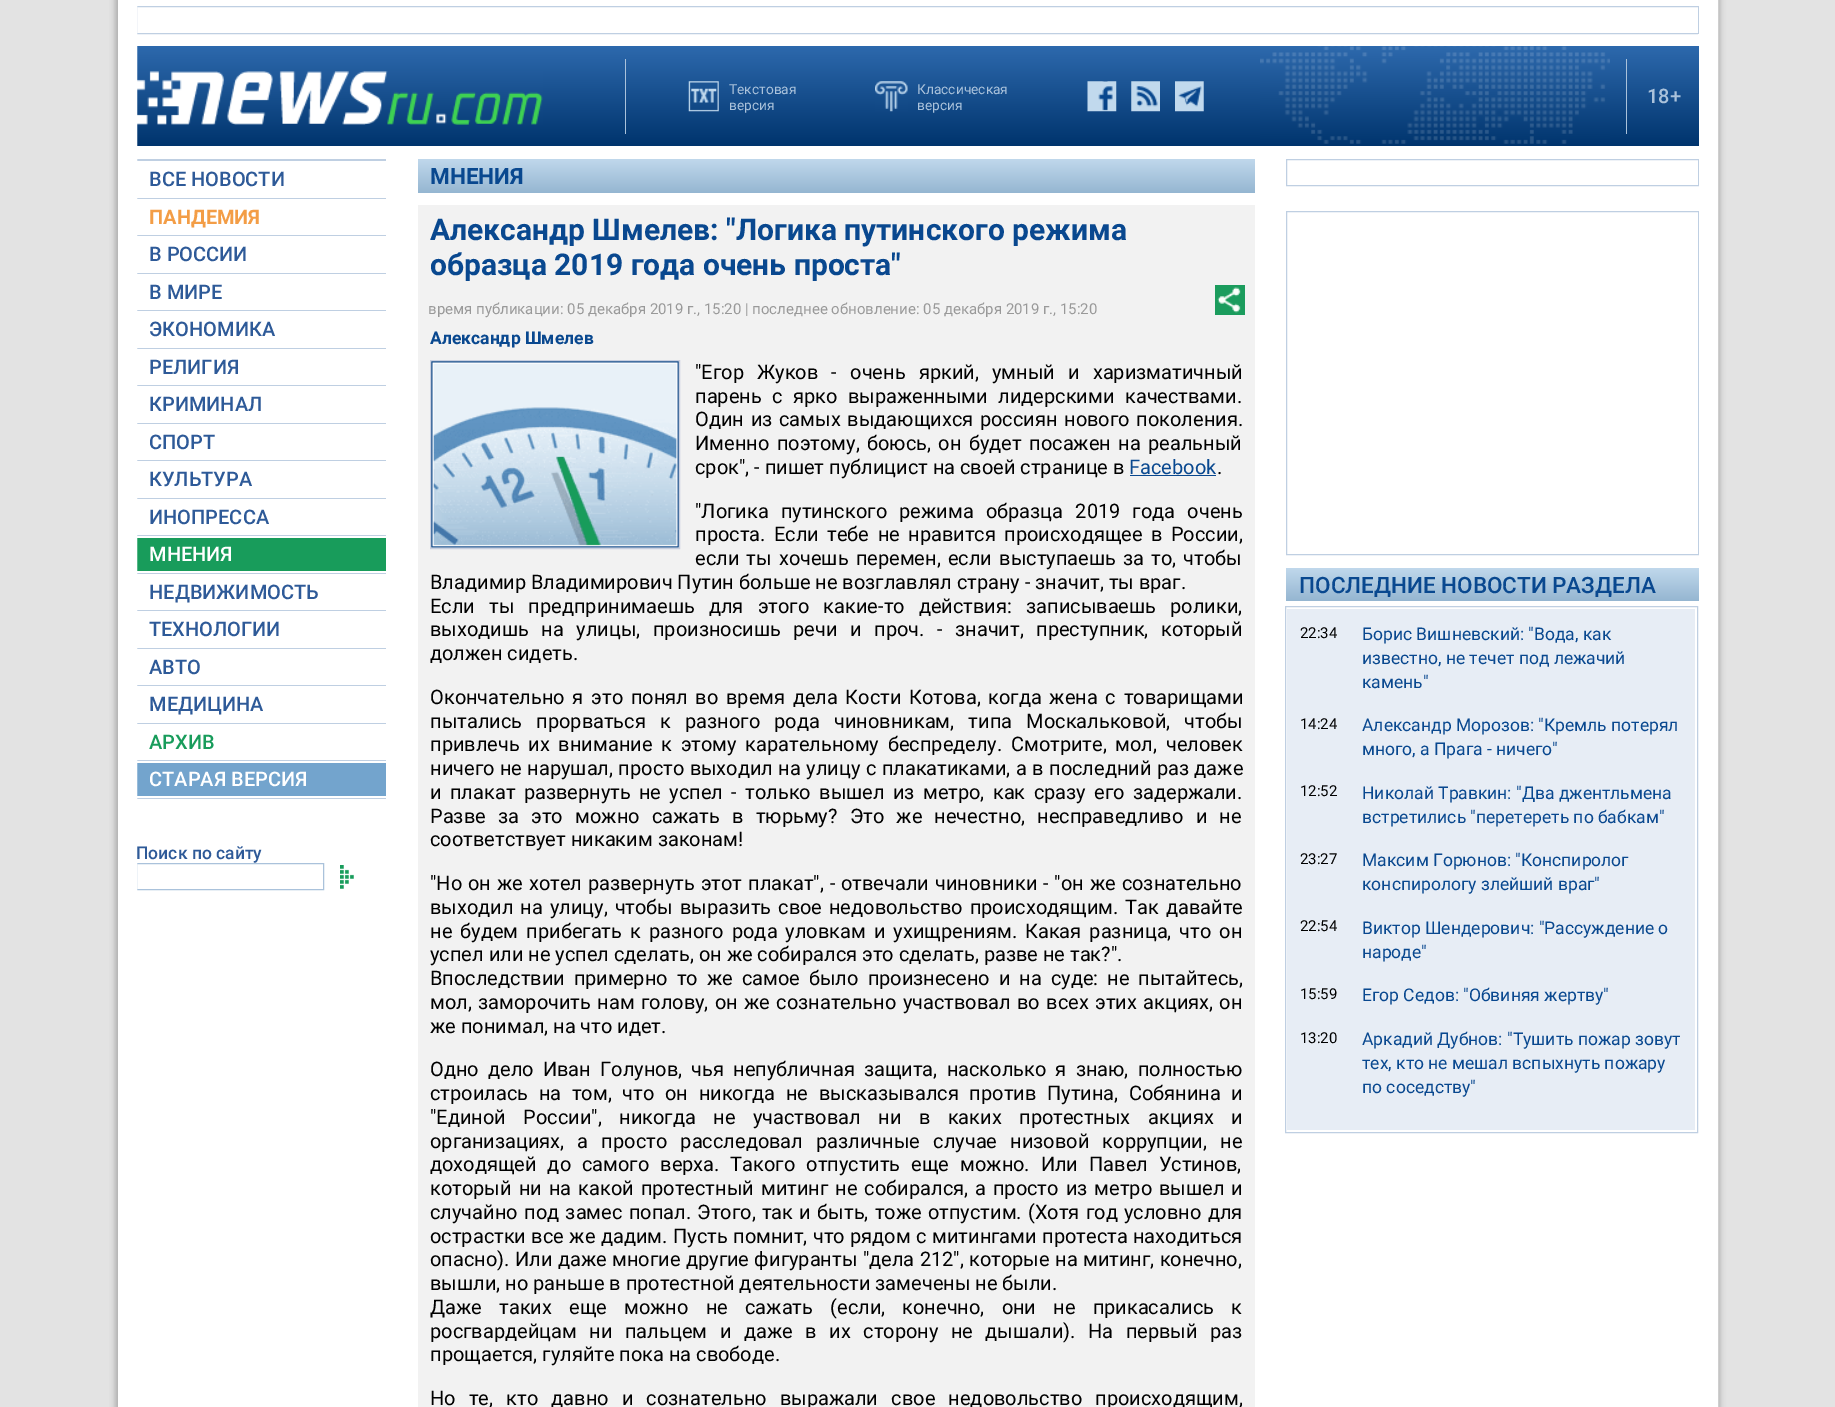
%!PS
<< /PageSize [1835 1407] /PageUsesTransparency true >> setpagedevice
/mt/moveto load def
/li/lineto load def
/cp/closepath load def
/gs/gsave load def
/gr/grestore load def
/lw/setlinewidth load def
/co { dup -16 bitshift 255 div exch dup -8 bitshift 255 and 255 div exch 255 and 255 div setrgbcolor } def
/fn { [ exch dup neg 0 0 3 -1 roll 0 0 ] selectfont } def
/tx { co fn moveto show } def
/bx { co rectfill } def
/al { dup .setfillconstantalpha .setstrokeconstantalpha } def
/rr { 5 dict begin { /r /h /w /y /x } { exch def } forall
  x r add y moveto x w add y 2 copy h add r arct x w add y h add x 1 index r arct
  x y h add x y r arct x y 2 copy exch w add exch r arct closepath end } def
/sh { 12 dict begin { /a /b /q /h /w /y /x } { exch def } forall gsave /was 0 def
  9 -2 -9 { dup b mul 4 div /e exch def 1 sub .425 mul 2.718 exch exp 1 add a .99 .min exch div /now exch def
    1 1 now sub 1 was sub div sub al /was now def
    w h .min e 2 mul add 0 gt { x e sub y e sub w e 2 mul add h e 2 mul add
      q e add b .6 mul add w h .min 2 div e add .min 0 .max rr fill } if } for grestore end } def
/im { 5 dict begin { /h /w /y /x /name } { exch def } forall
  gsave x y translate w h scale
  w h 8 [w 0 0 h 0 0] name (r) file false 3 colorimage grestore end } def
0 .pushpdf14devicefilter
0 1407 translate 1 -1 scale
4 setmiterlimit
0 0 1835 1407 16#E3E3E3 bx
137 0 1562 1407 16#FFFFFF bx
gs
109 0 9 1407 rectclip
16#ADADAD co
115 -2 1568 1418 0 3 1 sh
gr
gs
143 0 mt 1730 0 li 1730 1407 li 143 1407 li cp 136 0 mt 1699 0 li 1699 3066 li 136 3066 li cp eoclip newpath
16#ADADAD co
153 -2 1567 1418 0 3 1 sh
gr
16#BFCFE2 co
136.5 6.5 1562 27 rectstroke
1698 34 1 12 16#FFFFFF bx
gs 137 46 mt 1699 46 li 1699 146 li 137 146 li cp clip newpath
<< /ShadingType 2 /ColorSpace /DeviceRGB /Coords [918 46 918 146] /Extend [true true] /Function << /FunctionType 2 /Domain [0 1] /C0 [.176 .412 .678] /C1 [0 .204 .427] /N 1 >> >> shfill gr
(media/1.raw) 137 71 406 54 im
625 59 1 75 16#AAC2DB bx
(media/2.raw) 688 81 31 31 im
(media/3.raw) 875 81 33 31 im
(media/4.raw) 1087 81 30 31 im
(media/5.raw) 1131 81 29 31 im
1175 81 29 30 16#08468D bx
(media/6.raw) 1175 81 29 31 im
(media/7.raw) 1260 46 350 98 im
1626 59 1 75 16#AAC2DB bx
136 159 250 2 16#BFCFE2 bx
136 198 250 1 16#BFCFE2 bx
136 235 250 1 16#BFCFE2 bx
136 273 250 1 16#BFCFE2 bx
136 310 250 1 16#BFCFE2 bx
136 348 250 1 16#BFCFE2 bx
136 385 250 1 16#BFCFE2 bx
136 423 250 1 16#BFCFE2 bx
136 460 250 1 16#BFCFE2 bx
136 498 250 1 16#BFCFE2 bx
136 535 250 1 16#BFCFE2 bx
136 573 250 1 16#BFCFE2 bx
137 538 249 33 16#189C5B bx
136 610 250 1 16#BFCFE2 bx
136 648 250 1 16#BFCFE2 bx
136 685 250 1 16#BFCFE2 bx
136 723 250 1 16#BFCFE2 bx
136 760 250 1 16#BFCFE2 bx
136 798 250 1 16#BFCFE2 bx
137 763 249 33 16#73A4CD bx
16#AAC2DB co
136.5 863.5 187 26 rectstroke
gs 418 159 mt 1255 159 li 1255 193 li 418 193 li cp clip newpath
<< /ShadingType 2 /ColorSpace /DeviceRGB /Coords [836 159 836 193] /Extend [true true] /Function << /FunctionType 2 /Domain [0 1] /C0 [.753 .847 .925] /C1 [.584 .714 .82] /N 1 >> >> shfill gr
418 205 837 1202 16#F2F2F2 bx
(media/9.raw) 1215 285 30 30 im
16#C7CEDF co
430.5 360.5 249 188 rectstroke
(media/10.raw) 431 361 248 187 im
1130 475 86 1 16#09488F bx
16#BFCFE2 co
1286.5 159.5 412 26 rectstroke
1286.5 211.5 412 343 rectstroke
gs 1286 568 mt 1699 568 li 1699 601 li 1286 601 li cp clip newpath
<< /ShadingType 2 /ColorSpace /DeviceRGB /Coords [1493 568 1493 601] /Extend [true true] /Function << /FunctionType 2 /Domain [0 1] /C0 [.753 .847 .925] /C1 [.584 .714 .82] /N 1 >> >> shfill gr
1287 609 408 521 16#E7EDF5 bx
16#BFCFE2 co
1285.5 606.5 412 526 rectstroke
16#FFFFFF co
19 lw
127.5 -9.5 1581 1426 rectstroke
(media/8.raw) 340 865 14 24 im
(Текстовая) 729 94 /Roboto-Regular 13.75 16#AAC2DB tx
(версия) 729 110 /Roboto-Regular 13.75 16#AAC2DB tx
(Классическая) 917 94 /Roboto-Regular 13.75 16#AAC2DB tx
(версия) 917 110 /Roboto-Regular 13.75 16#AAC2DB tx
(18+) 1647 103 /Roboto-Medium 20 16#AAC2DB tx
(ВСЕ НОВОСТИ) 149 186 /Roboto-Medium 20 16#2E5A98 tx
(ПАНДЕМИЯ) 149 224 /Roboto-Bold 20 16#F39D46 tx
(В РОССИИ) 149 261 /Roboto-Medium 20 16#2E5A98 tx
(В МИРЕ) 149 299 /Roboto-Medium 20 16#2E5A98 tx
(ЭКОНОМИКА) 149 336 /Roboto-Medium 20 16#2E5A98 tx
(РЕЛИГИЯ) 149 374 /Roboto-Medium 20 16#2E5A98 tx
(КРИМИНАЛ) 149 411 /Roboto-Medium 20 16#2E5A98 tx
(СПОРТ) 149 449 /Roboto-Medium 20 16#2E5A98 tx
(КУЛЬТУРА) 149 486 /Roboto-Medium 20 16#2E5A98 tx
(ИНОПРЕССА) 149 524 /Roboto-Medium 20 16#2E5A98 tx
(МНЕНИЯ) 149 561 /Roboto-Medium 20 16#FFFFFF tx
(НЕДВИЖИМОСТЬ) 149 599 /Roboto-Medium 20 16#2E5A98 tx
(ТЕХНОЛОГИИ) 149 636 /Roboto-Medium 20 16#2E5A98 tx
(АВТО) 149 674 /Roboto-Medium 20 16#2E5A98 tx
(МЕДИЦИНА) 149 711 /Roboto-Medium 20 16#2E5A98 tx
(АРХИВ) 149 749 /Roboto-Medium 20 16#189C5B tx
(СТАРАЯ ВЕРСИЯ) 149 786 /Roboto-Medium 20 16#FFFFFF tx
(Поиск по сайту) 136 859 /Roboto-Medium 17.5 16#2E5A98 tx
(МНЕНИЯ) 430 184 /Roboto-Bold 22.5 16#09488F tx
(Александр Шмелев: "Логика путинского режима) 430 240 /Roboto-Bold 30 16#09488F tx
(образца 2019 года очень проста") 430 275 /Roboto-Bold 30 16#09488F tx
(время публикации: 05 декабря 2019 г., 15:20 | последнее обновление: 05 декабря 2019 г., 15:20) 428 314 /Roboto-Regular 15 16#999999 tx
(Александр Шмелев) 430 344 /Roboto-Bold 17.5 16#09488F tx
/Roboto-Regular 20 fn
16#000000 co
695 379 mt 8.25 0 32 ("Егор Жуков - очень яркий, умный и харизматичный) widthshow
695 403 mt 5.5 0 32 (парень с ярко выраженными лидерскими качествами.) widthshow
695 426 mt 1.75 0 32 (Один из самых выдающихся россиян нового поколения.) widthshow
695 450 mt 2.5 0 32 (Именно поэтому, боюсь, он будет посажен на реальный) widthshow
(срок", - пишет публицист на своей странице в) 695 474 /Roboto-Regular 20 16#000000 tx
(Facebook) 1129 474 /Roboto-Regular 20 16#09488F tx
(.) 1217 474 /Roboto-Regular 20 16#000000 tx
695 518 mt 7.25 0 32 ("Логика путинского режима образца 2019 года очень) widthshow
695 541 mt 3.5 0 32 (проста. Если тебе не нравится происходящее в России,) widthshow
695 565 mt 2.25 0 32 (если ты хочешь перемен, если выступаешь за то, чтобы) widthshow
(Владимир Владимирович Путин больше не возглавлял страну - значит, ты враг.) 430 589 /Roboto-Regular 20 16#000000 tx
430 613 mt 9.25 0 32 (Если ты предпринимаешь для этого какие-то действия: записываешь ролики,) widthshow
430 636 mt 7.6 0 32 (выходишь на улицы, произносишь речи и проч. - значит, преступник, который) widthshow
(должен сидеть.) 430 660 /Roboto-Regular 20 16#000000 tx
430 704 mt 2.75 0 32 (Окончательно я это понял во время дела Кости Котова, когда жена с товарищами) widthshow
430 728 mt 9.25 0 32 (пытались прорваться к разного рода чиновникам, типа Москальковой, чтобы) widthshow
430 751 mt 3.75 0 32 (привлечь их внимание к этому карательному беспределу. Смотрите, мол, человек) widthshow
430 775 mt .5 0 32 (ничего не нарушал, просто выходил на улицу с плакатиками, а в последний раз даже) widthshow
430 799 mt 3.4 0 32 (и плакат развернуть не успел - только вышел из метро, как сразу его задержали.) widthshow
430 823 mt 7.25 0 32 (Разве за это можно сажать в тюрьму? Это же нечестно, несправедливо и не) widthshow
(соответствует никаким законам!) 430 846 /Roboto-Regular 20 16#000000 tx
430 890 mt 1 0 32 ("Но он же хотел развернуть этот плакат", - отвечали чиновники - "он же сознательно) widthshow
430 914 mt 2 0 32 (выходил на улицу, чтобы выразить свое недовольство происходящим. Так давайте) widthshow
430 938 mt 3.1 0 32 (не будем прибегать к разного рода уловкам и ухищрениям. Какая разница, что он) widthshow
(успел или не успел сделать, он же собирался это сделать, разве не так?".) 430 961 /Roboto-Regular 20 16#000000 tx
430 985 mt 4.1 0 32 (Впоследствии примерно то же самое было произнесено и на суде: не пытайтесь,) widthshow
430 1009 mt 1.4 0 32 (мол, заморочить нам голову, он же сознательно участвовал во всех этих акциях, он) widthshow
(же понимал, на что идет.) 430 1033 /Roboto-Regular 20 16#000000 tx
430 1076 mt 4.25 0 32 (Одно дело Иван Голунов, чья непубличная защита, насколько я знаю, полностью) widthshow
430 1100 mt 5.75 0 32 (строилась на том, что он никогда не высказывался против Путина, Собянина и) widthshow
430 1124 mt 12.5 0 32 ("Единой России", никогда не участвовал ни в каких протестных акциях и) widthshow
430 1148 mt 8.25 0 32 (организациях, а просто расследовал различные случае низовой коррупции, не) widthshow
430 1171 mt 6 0 32 (доходящей до самого верха. Такого отпустить еще можно. Или Павел Устинов,) widthshow
430 1195 mt 2.1 0 32 (который ни на какой протестный митинг не собирался, а просто из метро вышел и) widthshow
430 1219 mt 1.4 0 32 (случайно под замес попал. Этого, так и быть, тоже отпустим. \(Хотя год условно для) widthshow
430 1243 mt .5 0 32 (острастки все же дадим. Пусть помнит, что рядом с митингами протеста находиться) widthshow
430 1266 mt .5 0 32 (опасно\). Или даже многие другие фигуранты "дела 212", которые на митинг, конечно,) widthshow
(вышли, но раньше в протестной деятельности замечены не были.) 430 1290 /Roboto-Regular 20 16#000000 tx
430 1314 mt 12.25 0 32 (Даже таких еще можно не сажать \(если, конечно, они не прикасались к) widthshow
430 1338 mt 7.6 0 32 (росгвардейцам ни пальцем и даже в их сторону не дышали\). На первый раз) widthshow
(прощается, гуляйте пока на свободе.) 430 1361 /Roboto-Regular 20 16#000000 tx
430 1405 mt 8.25 0 32 (Но те, кто давно и сознательно выражали свое недовольство происходящим,) widthshow
(ПОСЛЕДНИЕ НОВОСТИ РАЗДЕЛА) 1299 593 /Roboto-Medium 22.5 16#09488F tx
(22:34) 1300 638 /Roboto-Regular 15 16#000000 tx
(Борис Вишневский: "Вода, как) 1362 640 /Roboto-Regular 17.5 16#09488F tx
(известно, не течет под лежачий) 1362 664 /Roboto-Regular 17.5 16#09488F tx
(камень") 1362 688 /Roboto-Regular 17.5 16#09488F tx
(14:24) 1300 729 /Roboto-Regular 15 16#000000 tx
(Александр Морозов: "Кремль потерял) 1362 731 /Roboto-Regular 17.5 16#09488F tx
(много, а Прага - ничего") 1362 755 /Roboto-Regular 17.5 16#09488F tx
(12:52) 1300 796 /Roboto-Regular 15 16#000000 tx
(Николай Травкин: "Два джентльмена) 1362 799 /Roboto-Regular 17.5 16#09488F tx
(встретились "перетереть по бабкам") 1362 823 /Roboto-Regular 17.5 16#09488F tx
(23:27) 1300 864 /Roboto-Regular 15 16#000000 tx
(Максим Горюнов: "Конспиролог) 1362 866 /Roboto-Regular 17.5 16#09488F tx
(конспирологу злейший враг") 1362 890 /Roboto-Regular 17.5 16#09488F tx
(22:54) 1300 931 /Roboto-Regular 15 16#000000 tx
(Виктор Шендерович: "Рассуждение о) 1362 934 /Roboto-Regular 17.5 16#09488F tx
(народе") 1362 958 /Roboto-Regular 17.5 16#09488F tx
(15:59) 1300 999 /Roboto-Regular 15 16#000000 tx
(Егор Седов: "Обвиняя жертву") 1362 1001 /Roboto-Regular 17.5 16#09488F tx
(13:20) 1300 1043 /Roboto-Regular 15 16#000000 tx
(Аркадий Дубнов: "Тушить пожар зовут) 1362 1045 /Roboto-Regular 17.5 16#09488F tx
(тех, кто не мешал вспыхнуть пожару) 1362 1069 /Roboto-Regular 17.5 16#09488F tx
(по соседству") 1362 1093 /Roboto-Regular 17.5 16#09488F tx
.poppdf14devicefilter showpage
